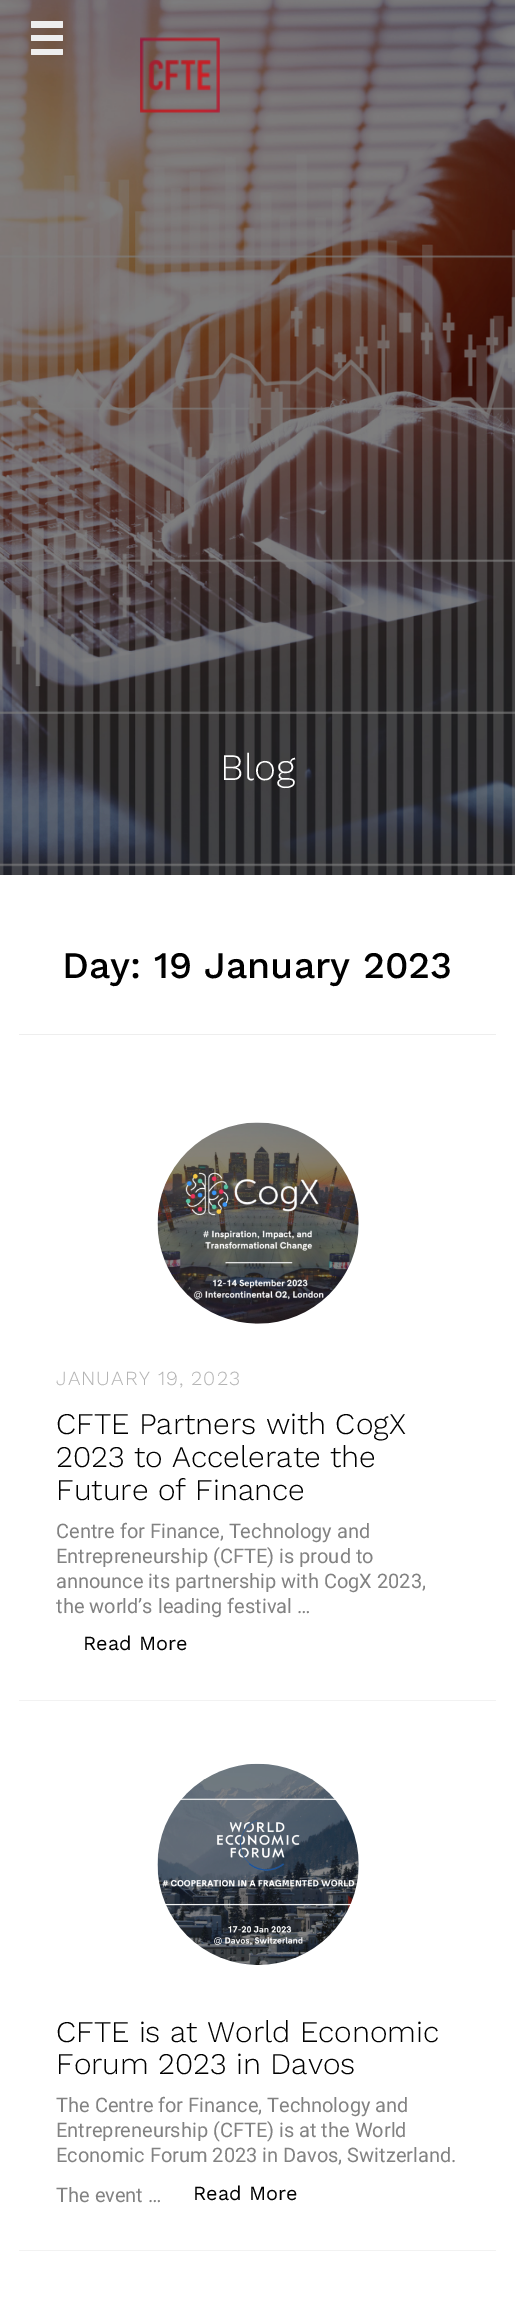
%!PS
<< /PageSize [515 2313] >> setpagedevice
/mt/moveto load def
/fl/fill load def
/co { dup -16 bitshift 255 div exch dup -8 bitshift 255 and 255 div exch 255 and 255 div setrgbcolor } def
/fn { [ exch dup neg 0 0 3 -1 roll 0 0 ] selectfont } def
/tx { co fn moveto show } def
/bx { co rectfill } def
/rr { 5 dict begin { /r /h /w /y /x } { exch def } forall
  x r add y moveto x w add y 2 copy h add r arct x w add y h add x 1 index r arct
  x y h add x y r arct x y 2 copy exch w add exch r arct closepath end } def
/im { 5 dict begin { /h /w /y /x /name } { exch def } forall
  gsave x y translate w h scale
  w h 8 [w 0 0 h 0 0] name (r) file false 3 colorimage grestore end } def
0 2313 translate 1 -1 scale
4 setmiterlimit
0 0 515 2313 16#FFFFFF bx
(media/1.raw) 0 0 515 875 im
16#EEEEEE co
31 35 32 6 1 rr fl
31 21 32 7 1 rr fl
31 49 32 6 1 rr fl
(media/2.raw) 140 37 80 76 im
19 1034 477 1 16#EEEEEE bx
19 1700 477 1 16#F2F2F2 bx
(media/3.raw) 157 1122 202 202 im
19 2250 477 1 16#F2F2F2 bx
(media/4.raw) 157 1763 202 202 im
(Blog) 220 780 /WorkSans-Light 37.5 16#FFFFFF tx
(Day: 19 January 2023) 62 978 /WorkSans-Medium 37.5 16#000000 tx
/WorkSans-Light 20 fn
16#B3B3B3 co
56 1385 mt 1 0 (JANUARY 19, 2023) ashow
(CFTE Partners with CogX) 56 1434 /WorkSans-Light 30 16#000000 tx
(2023 to Accelerate the) 56 1467 /WorkSans-Light 30 16#000000 tx
(Future of Finance) 56 1500 /WorkSans-Light 30 16#000000 tx
(Centre for Finance, Technology and) 56 1538 /Roboto-Regular 20 16#828282 tx
(Entrepreneurship \(CFTE\) is proud to) 56 1563 /Roboto-Regular 20 16#828282 tx
(announce its partnership with CogX 2023,) 56 1588 /Roboto-Regular 20 16#828282 tx
(the world’s leading festival …) 56 1613 /Roboto-Regular 20 16#828282 tx
(Read More) 83 1650 /WorkSans-Regular 20 16#000000 tx
(CFTE is at World Economic) 56 2042 /WorkSans-Light 30 16#000000 tx
(Forum 2023 in Davos) 56 2074 /WorkSans-Light 30 16#000000 tx
(The Centre for Finance, Technology and) 56 2112 /Roboto-Regular 20 16#828282 tx
(Entrepreneurship \(CFTE\) is at the World) 56 2137 /Roboto-Regular 20 16#828282 tx
(Economic Forum 2023 in Davos, Switzerland.) 56 2162 /Roboto-Regular 20 16#828282 tx
(The event …) 56 2202 /Roboto-Regular 20 16#828282 tx
(Read More) 193 2200 /WorkSans-Regular 20 16#000000 tx
showpage
